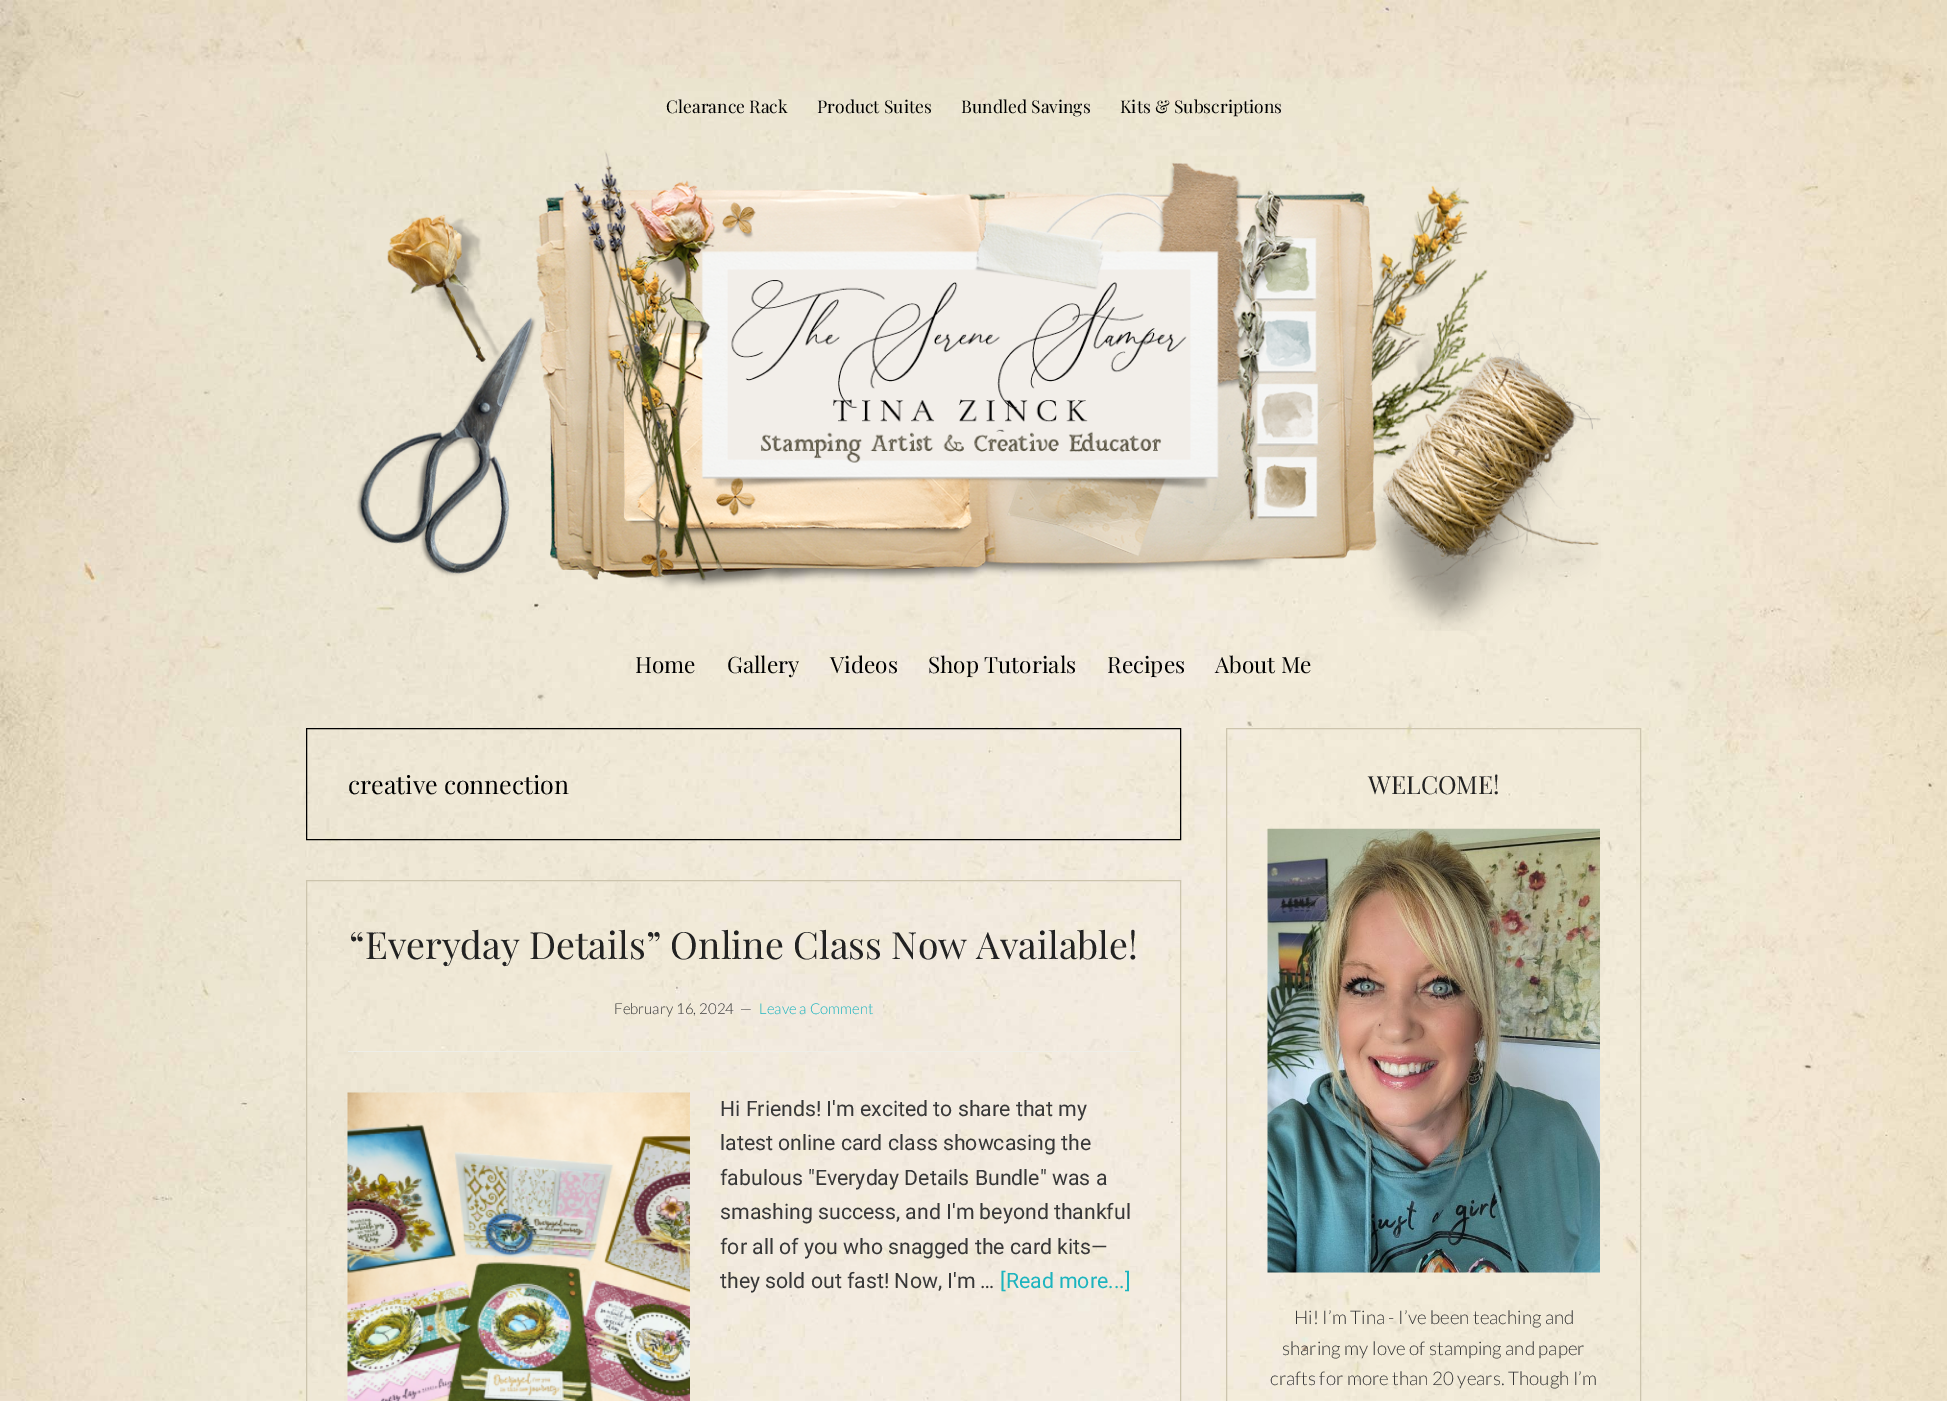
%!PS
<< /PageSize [1947 1401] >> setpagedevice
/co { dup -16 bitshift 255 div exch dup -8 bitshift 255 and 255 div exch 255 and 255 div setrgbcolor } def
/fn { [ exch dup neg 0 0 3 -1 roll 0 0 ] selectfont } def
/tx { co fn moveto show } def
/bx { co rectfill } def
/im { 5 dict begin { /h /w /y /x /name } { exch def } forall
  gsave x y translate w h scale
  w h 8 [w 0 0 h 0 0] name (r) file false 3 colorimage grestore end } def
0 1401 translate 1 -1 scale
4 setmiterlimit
0 0 1947 1401 16#FFFFFF bx
(media/1.raw) 0 0 1947 1401 im
(media/2.raw) 356 151 1245 480 im
16#000000 co
306.5 728.5 874 111 rectstroke
16#CCC4AD co
306.5 880.5 874 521 rectstroke
348 1051 792 1 16#EEEEE8 bx
(media/3.raw) 347 1092 343 309 im
16#CCC4AD co
1226.5 728.5 414 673 rectstroke
(media/4.raw) 1267 828 333 445 im
(Clearance Rack) 666 113 /PlayfairDisplay-Regular 17.5 16#000000 tx
(Product Suites) 817 113 /PlayfairDisplay-Regular 17.5 16#000000 tx
(Bundled Savings) 961 113 /PlayfairDisplay-Regular 17.5 16#000000 tx
(Kits & Subscriptions) 1120 113 /PlayfairDisplay-Regular 17.5 16#000000 tx
(Home) 635 673 /PlayfairDisplay-Regular 22.5 16#000000 tx
(Gallery) 727 673 /PlayfairDisplay-Regular 22.5 16#000000 tx
(Videos) 830 673 /PlayfairDisplay-Regular 22.5 16#000000 tx
(Shop Tutorials) 928 673 /PlayfairDisplay-Regular 22.5 16#000000 tx
(Recipes) 1107 673 /PlayfairDisplay-Regular 22.5 16#000000 tx
(About Me) 1215 673 /PlayfairDisplay-Regular 22.5 16#000000 tx
(creative connection) 348 794 /PlayfairDisplay-Regular 25 16#000000 tx
(“Everyday Details” Online Class Now Available!) 349 959 /PlayfairDisplay-Regular 37.5 16#222222 tx
(February 16, 2024) 614 1014 /Lato-Light 15 16#383838 tx
(—) 740 1014 /Lato-Light 15 16#383838 tx
(Leave a Comment) 759 1014 /Lato-Light 15 16#1CB4BF tx
(Hi Friends! I'm excited to share that my) 720 1116 /Roboto-Regular 21.25 16#383838 tx
(latest online card class showcasing the) 720 1150 /Roboto-Regular 21.25 16#383838 tx
(fabulous "Everyday Details Bundle" was a) 720 1185 /Roboto-Regular 21.25 16#383838 tx
(smashing success, and I'm beyond thankful) 720 1219 /Roboto-Regular 21.25 16#383838 tx
(for all of you who snagged the card kits—) 720 1254 /Roboto-Regular 21.25 16#383838 tx
(they sold out fast! Now, I'm …) 720 1288 /Roboto-Regular 21.25 16#383838 tx
([Read more...]) 1000 1288 /Roboto-Regular 21.25 16#1CB4BF tx
(WELCOME!) 1368 794 /PlayfairDisplay-Regular 25 16#222222 tx
(Hi! I’m Tina - I’ve been teaching and) 1294 1324 /Lato-Light 18.75 16#383838 tx
(sharing my love of stamping and paper) 1282 1355 /Lato-Light 18.75 16#383838 tx
(crafts for more than 20 years. Though I’m) 1270 1385 /Lato-Light 18.75 16#383838 tx
showpage
